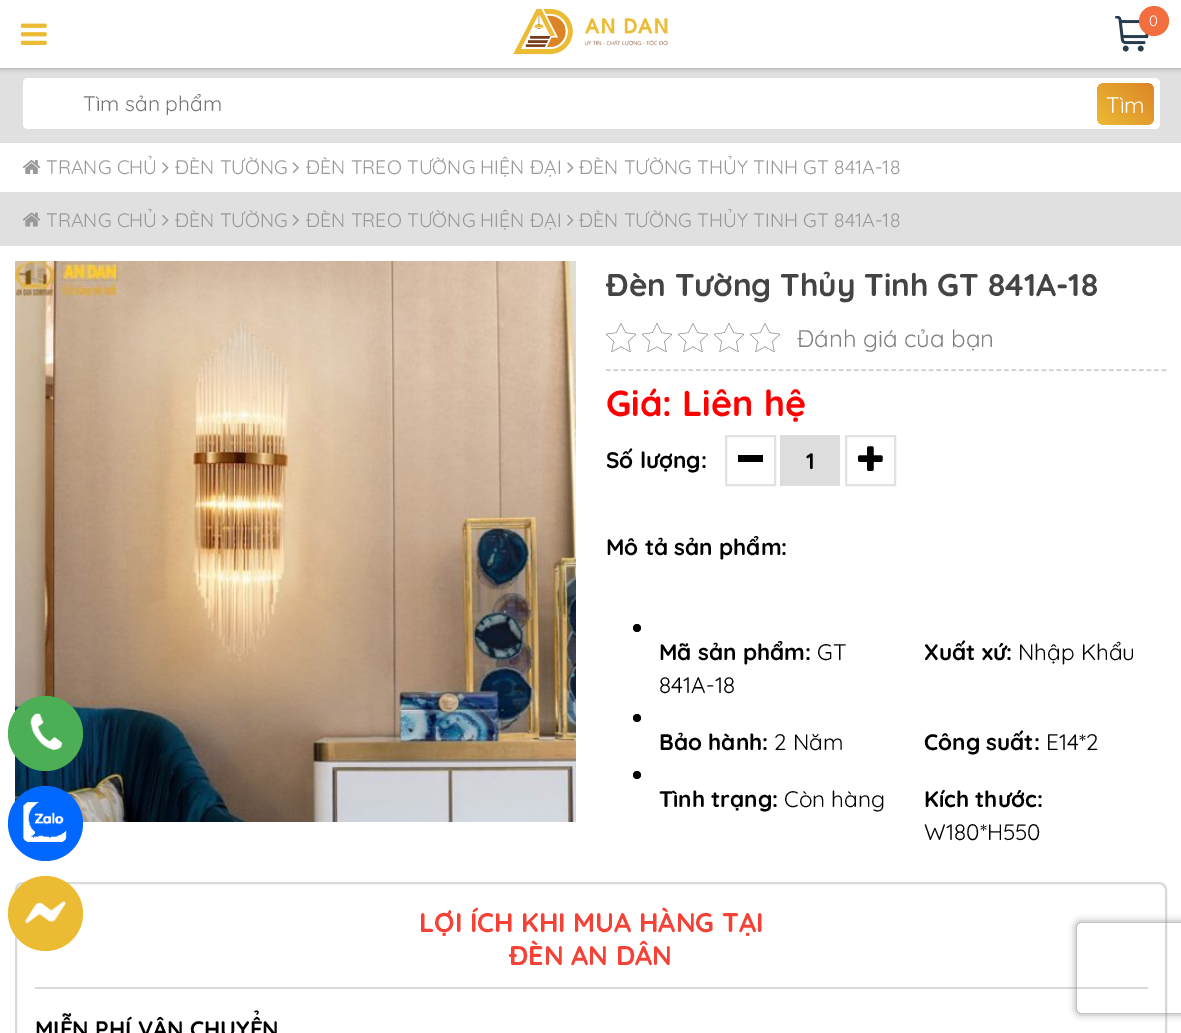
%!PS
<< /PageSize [1181 1033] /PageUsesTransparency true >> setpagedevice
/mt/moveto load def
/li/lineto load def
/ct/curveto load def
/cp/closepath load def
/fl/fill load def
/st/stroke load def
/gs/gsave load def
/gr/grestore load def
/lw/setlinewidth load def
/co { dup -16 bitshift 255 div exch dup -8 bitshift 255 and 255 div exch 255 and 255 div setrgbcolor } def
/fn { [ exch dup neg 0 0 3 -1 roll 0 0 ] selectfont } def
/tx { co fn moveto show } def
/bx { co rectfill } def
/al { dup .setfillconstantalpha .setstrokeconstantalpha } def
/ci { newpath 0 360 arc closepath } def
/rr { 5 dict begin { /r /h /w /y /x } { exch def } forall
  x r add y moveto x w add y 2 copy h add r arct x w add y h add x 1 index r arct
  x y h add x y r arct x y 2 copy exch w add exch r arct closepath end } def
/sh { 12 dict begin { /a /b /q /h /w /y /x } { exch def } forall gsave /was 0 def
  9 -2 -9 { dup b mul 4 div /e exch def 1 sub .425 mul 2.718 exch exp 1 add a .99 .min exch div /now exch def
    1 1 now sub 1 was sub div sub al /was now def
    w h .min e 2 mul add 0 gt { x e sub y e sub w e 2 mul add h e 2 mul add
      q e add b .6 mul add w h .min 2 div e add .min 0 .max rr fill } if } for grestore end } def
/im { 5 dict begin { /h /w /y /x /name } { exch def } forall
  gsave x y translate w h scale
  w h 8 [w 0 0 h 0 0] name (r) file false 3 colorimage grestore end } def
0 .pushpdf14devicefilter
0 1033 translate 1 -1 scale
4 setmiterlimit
0 0 1181 1033 16#E0E0E0 bx
0 143 1181 49 16#FFFFFF bx
16#000000 co
0 2 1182 67 0 2 .25 sh
0 0 1181 68 16#FFFFFF bx
(media/1.raw) 513 9 155 46 im
(media/2.raw) 1115 16 34 36 im
16#F26E3F co
1154 21 15 ci fl
(media/3.raw) 21 23 26 22 im
16#FFFFFF co
23 78 1137 51 5 rr fl
gs 1097 83 57 42 8 rr clip newpath
<< /ShadingType 2 /ColorSpace /DeviceRGB /Coords [1101 129 1149 78] /Extend [true true] /Function << /FunctionType 2 /Domain [0 1] /C0 [.925 .733 .204] /C1 [.863 .522 .153] /N 1 >> >> shfill gr
(media/4.raw) 22 160 19 14 im
(media/5.raw) 162 162 7 11 im
(media/6.raw) 292 162 7 12 im
(media/5.raw) 567 162 7 11 im
(media/7.raw) 22 212 19 15 im
(media/8.raw) 162 215 7 11 im
(media/9.raw) 292 214 7 12 im
(media/8.raw) 567 215 7 11 im
0 246 1181 787 16#FFFFFF bx
(media/10.raw) 15 261 561 561 im
16#CCCCCC co
1.5 lw
[4.5 3.01] 0 setdash
606 370 mt 1167 370 li st
(media/11.raw) 606 323 30 30 im
(media/11.raw) 642 323 30 30 im
(media/11.raw) 678 323 30 30 im
(media/11.raw) 714 323 30 30 im
(media/11.raw) 750 323 30 30 im
16#E1E1E1 co
2 lw
[] 0 setdash
726 436 49 49 rectstroke
738 455 25 7 16#000000 bx
780 435 60 51 16#DDDDDD bx
16#E1E1E1 co
846 436 49 49 rectstroke
(media/12.raw) 858 446 25 25 im
16#000000 co
637 628 4 ci fl
637 718 4 ci fl
637 775 4 ci fl
16#D9D9D9 co
16 883 1150 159 7 rr st
35 987 1113 2 16#D9D9D9 bx
16#4DAF55 co
45.5 733.5 37.5 ci fl
(media/13.raw) 30 713 33 37 im
16#0068FF co
45.5 823.5 37.5 ci fl
(media/14.raw) 23 802 44 40 im
16#ECBB34 co
45.5 913.5 37.5 ci fl
(media/15.raw) 25 901 41 23 im
gs
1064 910 mt 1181 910 li 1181 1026 li 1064 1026 li cp 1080 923 mt 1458 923 li 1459.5 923 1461 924.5 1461 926 ct 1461 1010 li 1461 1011.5 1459.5 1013 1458 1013 ct 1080 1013 li 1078.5 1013 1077 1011.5 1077 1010 ct 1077 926 li 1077 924.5 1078.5 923 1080 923 ct cp eoclip newpath
16#808080 co
1077 923 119 90 3 4 1 sh
gr
(0) 1149 26 /Quicksand-Regular 15 16#FFFFFF tx
(Tìm sản phẩm) 83 111 /Quicksand-Regular 21 16#757575 tx
(Tìm) 1106 113 /Quicksand-Regular 22.5 16#FFFFFF tx
(TRANG CHỦ) 46 174 /Quicksand-Regular 19.5 16#999999 tx
(ĐÈN TƯỜNG) 175 174 /Quicksand-Regular 19.5 16#999999 tx
(ĐÈN TREO TƯỜNG HIỆN ĐẠI) 306 174 /Quicksand-Regular 19.5 16#999999 tx
(ĐÈN TƯỜNG THỦY TINH GT 841A-18) 579 174 /Quicksand-Regular 19.5 16#999999 tx
(TRANG CHỦ) 46 227 /Quicksand-Regular 19.5 16#999999 tx
(ĐÈN TƯỜNG) 175 227 /Quicksand-Regular 19.5 16#999999 tx
(ĐÈN TREO TƯỜNG HIỆN ĐẠI) 306 227 /Quicksand-Regular 19.5 16#999999 tx
(ĐÈN TƯỜNG THỦY TINH GT 841A-18) 579 227 /Quicksand-Regular 19.5 16#999999 tx
(Đèn Tường Thủy Tinh GT 841A-18) 606 296 /Quicksand-Bold 31.5 16#444444 tx
(Đánh giá của bạn) 797 347 /Quicksand-Regular 24 16#808080 tx
(Giá: Liên hệ) 606 416 /Quicksand-Bold 36 16#FF0000 tx
(Số lượng:) 606 468 /Quicksand-Bold 22.5 16#000000 tx
(1) 806 469 /Quicksand-Bold 22.5 16#000000 tx
(Mô tả sản phẩm:) 606 555 /Quicksand-Bold 22.5 16#000000 tx
(Mã sản phẩm:) 659 660 /Quicksand-Bold 22.5 16#000000 tx
(GT) 817 660 /Quicksand-Regular 22.5 16#000000 tx
(841A-18) 659 693 /Quicksand-Regular 22.5 16#000000 tx
(Xuất xứ:) 924 660 /Quicksand-Bold 22.5 16#000000 tx
(Nhập Khẩu) 1018 660 /Quicksand-Regular 22.5 16#000000 tx
(Bảo hành:) 659 750 /Quicksand-Bold 22.5 16#000000 tx
(2 Năm) 774 750 /Quicksand-Regular 22.5 16#000000 tx
(Công suất:) 924 750 /Quicksand-Bold 22.5 16#000000 tx
(E14*2) 1046 750 /Quicksand-Regular 22.5 16#000000 tx
(Tình trạng:) 659 807 /Quicksand-Bold 22.5 16#000000 tx
(Còn hàng) 784 807 /Quicksand-Regular 22.5 16#000000 tx
(Kích thước:) 924 807 /Quicksand-Bold 22.5 16#000000 tx
(W180*H550) 924 840 /Quicksand-Regular 22.5 16#000000 tx
(LỢI ÍCH KHI MUA HÀNG TẠI) 419 932 /Quicksand-Bold 27 16#F44336 tx
(ĐÈN AN DÂN) 509 965 /Quicksand-Bold 27 16#F44336 tx
(MIỄN PHÍ VẬN CHUYỂN) 35 1037 /Quicksand-Bold 22.5 16#000000 tx
.poppdf14devicefilter showpage
